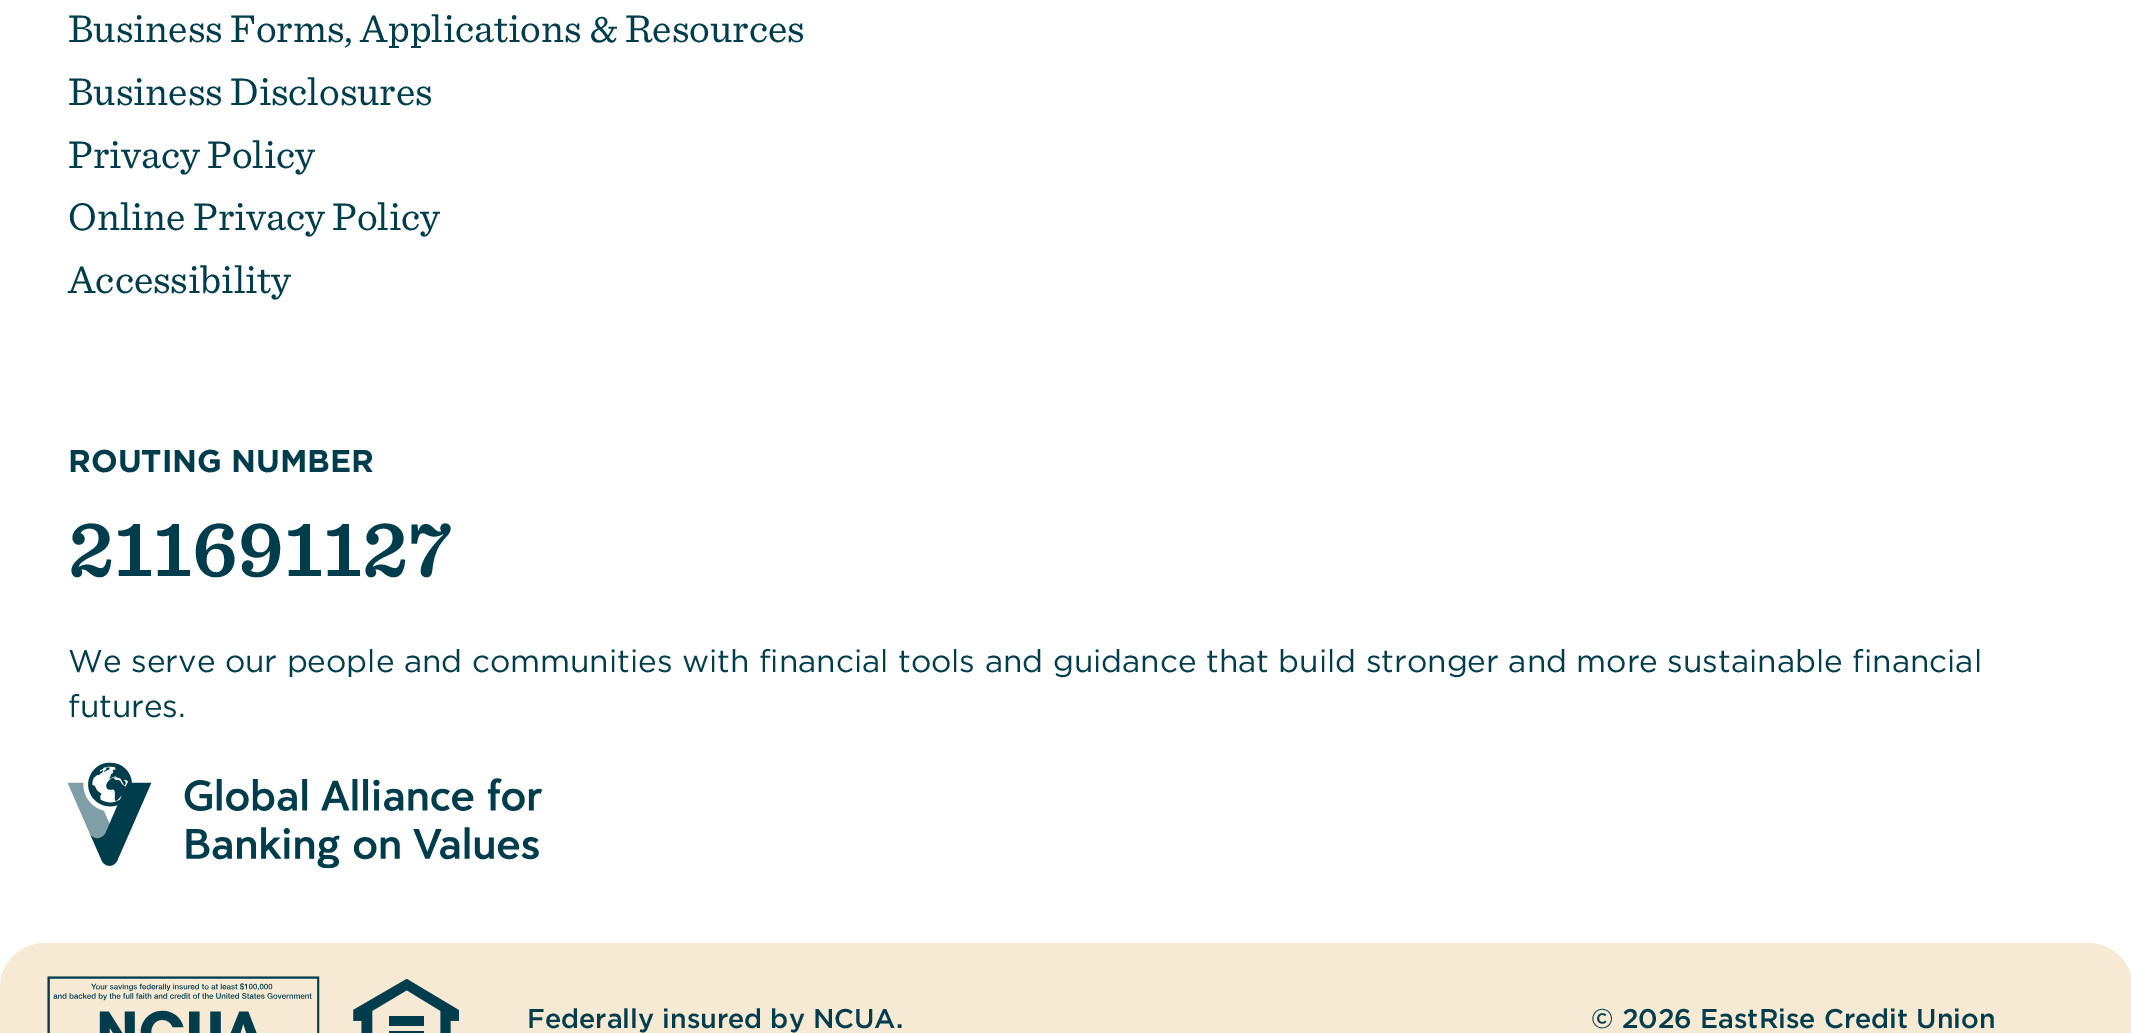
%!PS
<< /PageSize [2131 1033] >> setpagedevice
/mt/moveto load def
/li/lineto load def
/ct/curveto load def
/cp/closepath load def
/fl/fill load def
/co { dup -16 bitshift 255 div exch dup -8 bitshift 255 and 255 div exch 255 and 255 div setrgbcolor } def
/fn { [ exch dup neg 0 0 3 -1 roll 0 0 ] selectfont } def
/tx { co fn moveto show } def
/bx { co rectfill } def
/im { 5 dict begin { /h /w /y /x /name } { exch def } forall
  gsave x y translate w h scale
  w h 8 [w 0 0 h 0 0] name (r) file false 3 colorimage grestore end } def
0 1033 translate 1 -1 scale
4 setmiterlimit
0 0 2131 1033 16#FFFFFF bx
(media/1.raw) 67 762 475 107 im
16#F7EAD5 co
45 943 mt 2088 943 li 2113 943 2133 963 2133 988 ct 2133 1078 li 0 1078 li 0 988 li 0 963 20 943 45 943 ct cp fl
(media/2.raw) 47 976 273 57 im
(media/3.raw) 353 979 106 54 im
(Business Forms, Applications & Resources) 68 42 /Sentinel-Regular 40.5 16#003D4C tx
(Business Disclosures) 68 105 /Sentinel-Regular 40.5 16#003D4C tx
(Privacy Policy) 68 168 /Sentinel-Regular 40.5 16#003D4C tx
(Online Privacy Policy) 68 230 /Sentinel-Regular 40.5 16#003D4C tx
(Accessibility) 68 293 /Sentinel-Regular 40.5 16#003D4C tx
(ROUTING NUMBER) 68 472 /Gotham-Bold 31.5 16#003D4C tx
(211691127) 68 576 /Sentinel-SemiBold 81 16#003D4C tx
(We serve our people and communities with financial tools and guidance that build stronger and more sustainable financial) 68 672 /Gotham-Regular 31.5 16#003D4C tx
(futures.) 68 717 /Gotham-Regular 31.5 16#003D4C tx
(Federally insured by NCUA.) 527 1028 /Gotham-Medium 27 16#003D4C tx
(© 2026 EastRise Credit Union) 1591 1028 /Gotham-Medium 27 16#003D4C tx
showpage
